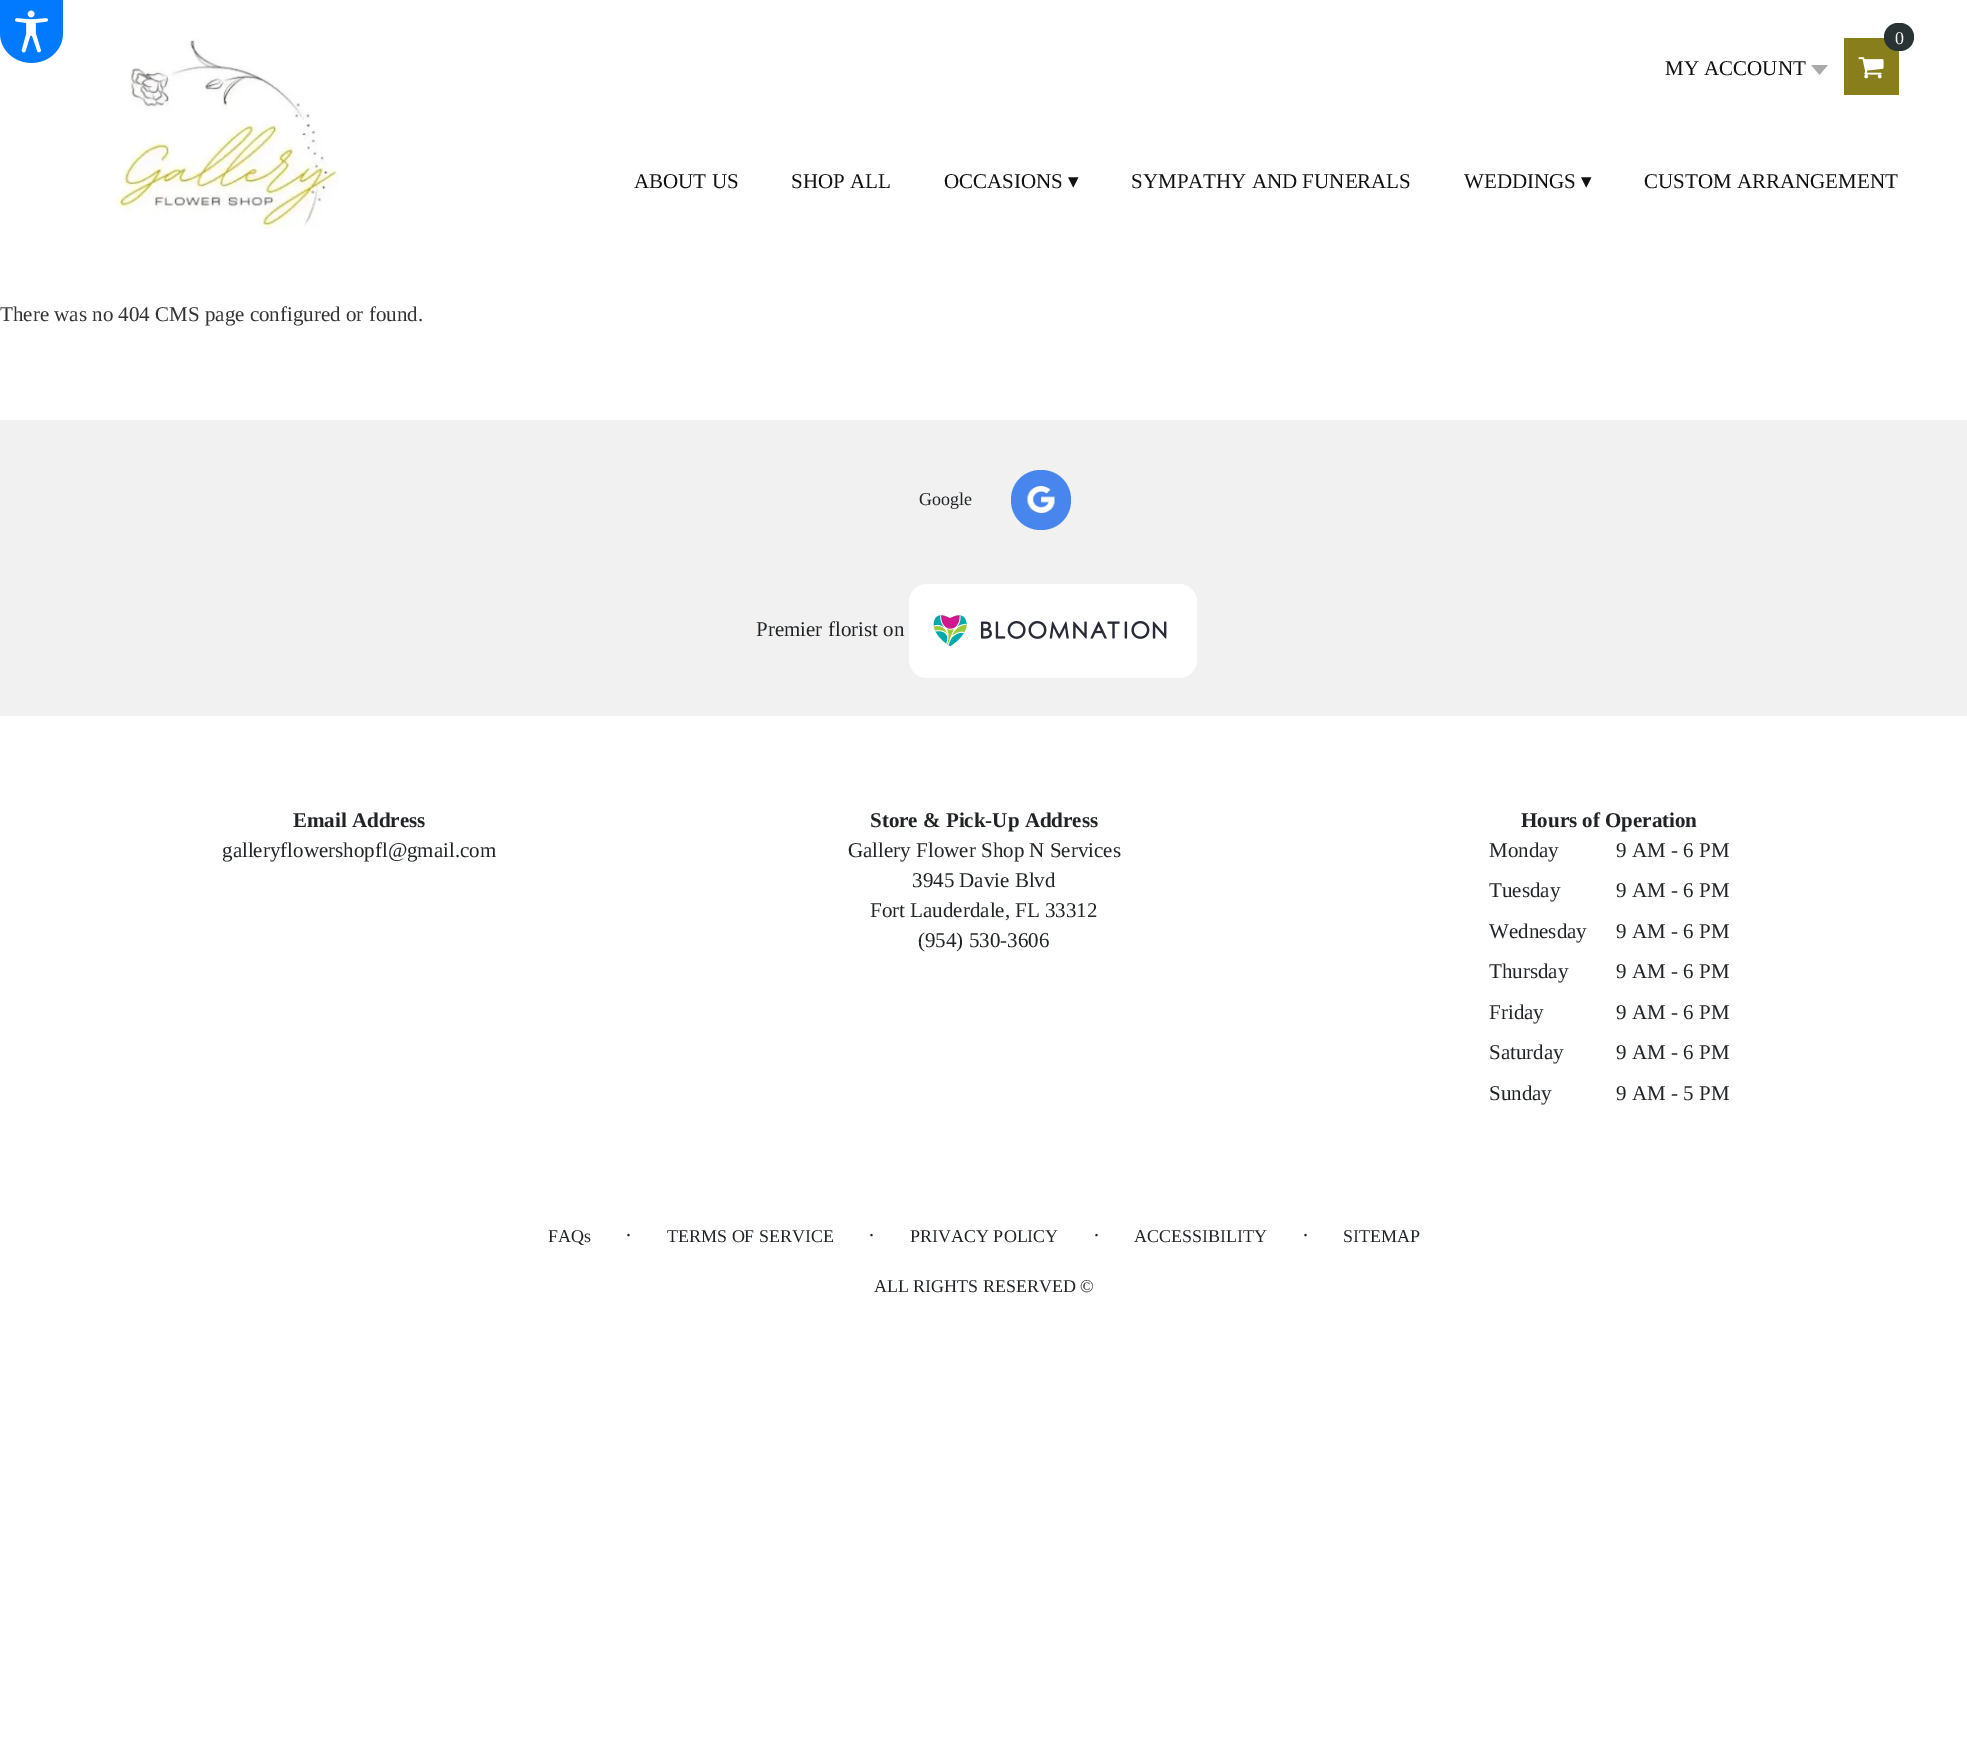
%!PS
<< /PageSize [1967 1754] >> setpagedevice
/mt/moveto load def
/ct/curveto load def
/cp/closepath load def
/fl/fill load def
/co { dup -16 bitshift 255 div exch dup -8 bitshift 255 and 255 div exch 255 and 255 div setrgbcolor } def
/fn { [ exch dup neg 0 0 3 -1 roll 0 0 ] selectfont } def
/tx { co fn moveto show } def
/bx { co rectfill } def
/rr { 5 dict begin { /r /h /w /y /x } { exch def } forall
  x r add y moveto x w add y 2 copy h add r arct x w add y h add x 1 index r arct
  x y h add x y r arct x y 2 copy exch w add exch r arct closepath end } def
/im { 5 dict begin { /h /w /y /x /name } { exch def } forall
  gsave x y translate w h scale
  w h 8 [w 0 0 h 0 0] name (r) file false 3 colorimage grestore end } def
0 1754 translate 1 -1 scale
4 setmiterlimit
0 0 1967 1754 16#FFFFFF bx
(media/1.raw) 0 0 63 63 im
(media/2.raw) 115 38 224 191 im
1844 38 55 57 16#887F1C bx
16#293333 co
1884 23 30 28 14 rr fl
(media/3.raw) 1858 57 26 22 im
(media/4.raw) 1811 65 17 10 im
0 420 1967 296 16#F1F1F1 bx
16#4885ED co
1071 500 mt 1071 483 1058 470 1041 470 ct 1024 470 1011 483 1011 500 ct 1011 517 1024 530 1041 530 ct 1058 530 1071 517 1071 500 ct cp fl
(media/5.raw) 1027 486 28 27 im
16#FFFFFF co
909 584 288 94 18 rr fl
(media/6.raw) 933 615 234 32 im
(0) 1895 44 /LiberationSerif-Regular 18 16#FFFFFF tx
(MY ACCOUNT) 1665 75 /LiberationSerif-Regular 21 16#111111 tx
(ABOUT US) 634 188 /LiberationSerif-Regular 21 16#111111 tx
(SHOP ALL) 791 188 /LiberationSerif-Regular 21 16#111111 tx
(OCCASIONS) 944 188 /LiberationSerif-Regular 21 16#111111 tx
(▾) 1068 188 /DejaVuSans-Regular 21 16#111111 tx
(SYMPATHY AND FUNERALS) 1131 188 /LiberationSerif-Regular 21 16#111111 tx
(WEDDINGS) 1464 188 /LiberationSerif-Regular 21 16#111111 tx
(▾) 1581 188 /DejaVuSans-Regular 21 16#111111 tx
(CUSTOM ARRANGEMENT) 1644 188 /LiberationSerif-Regular 21 16#111111 tx
(There was no 404 CMS page configured or found.) 0 321 /LiberationSerif-Regular 21 16#333333 tx
(Google) 919 505 /LiberationSerif-Regular 18 16#212427 tx
(Premier florist on) 756 636 /LiberationSerif-Regular 21 16#212427 tx
(Email Address) 293 827 /LiberationSerif-Bold 21 16#212427 tx
(galleryflowershopfl@gmail.com) 222 857 /LiberationSerif-Regular 21 16#212427 tx
(Store & Pick-Up Address) 870 827 /LiberationSerif-Bold 21 16#212427 tx
(Gallery Flower Shop N Services) 848 857 /LiberationSerif-Regular 21 16#212427 tx
(3945 Davie Blvd) 912 887 /LiberationSerif-Regular 21 16#212427 tx
(Fort Lauderdale, FL 33312) 870 917 /LiberationSerif-Regular 21 16#212427 tx
(\(954\) 530-3606) 918 947 /LiberationSerif-Regular 21 16#212427 tx
(Hours of Operation) 1521 827 /LiberationSerif-Bold 21 16#212427 tx
(Monday) 1489 857 /LiberationSerif-Regular 21 16#212427 tx
(9 AM - 6 PM) 1616 857 /LiberationSerif-Regular 21 16#212427 tx
(Tuesday) 1489 897 /LiberationSerif-Regular 21 16#212427 tx
(9 AM - 6 PM) 1616 897 /LiberationSerif-Regular 21 16#212427 tx
(Wednesday) 1489 938 /LiberationSerif-Regular 21 16#212427 tx
(9 AM - 6 PM) 1616 938 /LiberationSerif-Regular 21 16#212427 tx
(Thursday) 1489 978 /LiberationSerif-Regular 21 16#212427 tx
(9 AM - 6 PM) 1616 978 /LiberationSerif-Regular 21 16#212427 tx
(Friday) 1489 1019 /LiberationSerif-Regular 21 16#212427 tx
(9 AM - 6 PM) 1616 1019 /LiberationSerif-Regular 21 16#212427 tx
(Saturday) 1489 1059 /LiberationSerif-Regular 21 16#212427 tx
(9 AM - 6 PM) 1616 1059 /LiberationSerif-Regular 21 16#212427 tx
(Sunday) 1489 1100 /LiberationSerif-Regular 21 16#212427 tx
(9 AM - 5 PM) 1616 1100 /LiberationSerif-Regular 21 16#212427 tx
(FAQs) 548 1242 /LiberationSerif-Regular 18 16#212427 tx
(·) 625 1242 /LiberationSerif-Regular 21 16#212427 tx
(TERMS OF SERVICE) 667 1242 /LiberationSerif-Regular 18 16#212427 tx
(·) 868 1242 /LiberationSerif-Regular 21 16#212427 tx
(PRIVACY POLICY) 910 1242 /LiberationSerif-Regular 18 16#212427 tx
(·) 1093 1242 /LiberationSerif-Regular 21 16#212427 tx
(ACCESSIBILITY) 1134 1242 /LiberationSerif-Regular 18 16#212427 tx
(·) 1302 1242 /LiberationSerif-Regular 21 16#212427 tx
(SITEMAP) 1343 1242 /LiberationSerif-Regular 18 16#212427 tx
(ALL RIGHTS RESERVED ©) 874 1292 /LiberationSerif-Regular 18 16#212427 tx
showpage
